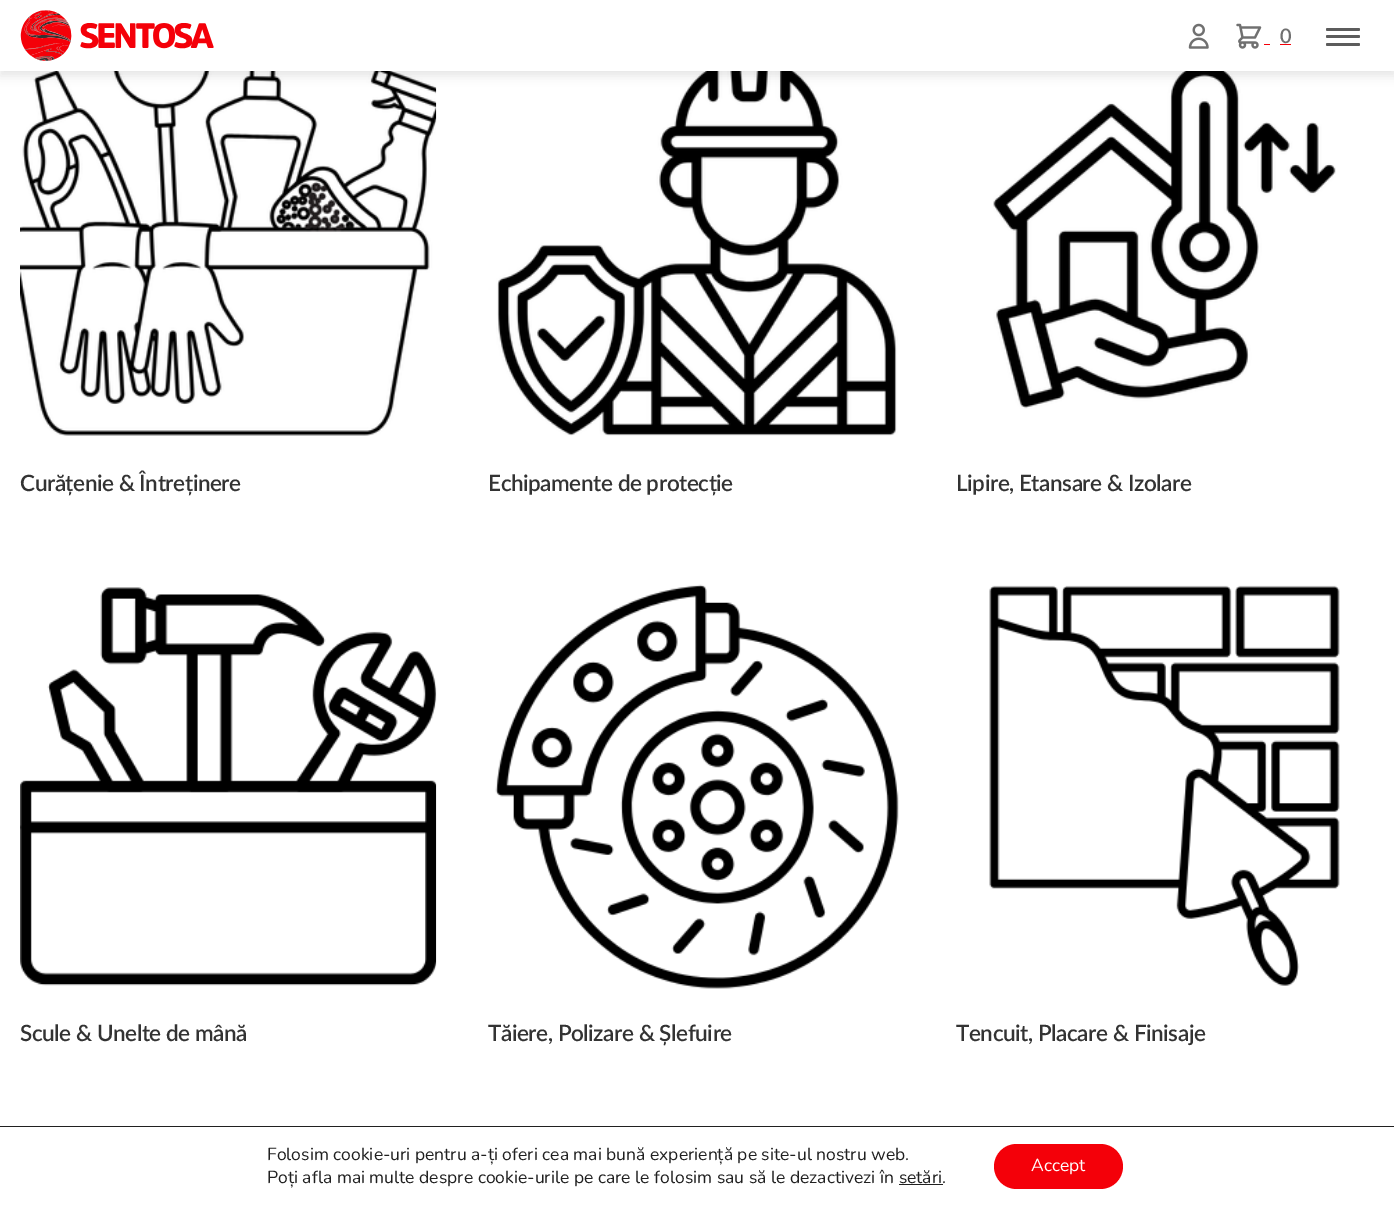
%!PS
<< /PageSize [1394 1205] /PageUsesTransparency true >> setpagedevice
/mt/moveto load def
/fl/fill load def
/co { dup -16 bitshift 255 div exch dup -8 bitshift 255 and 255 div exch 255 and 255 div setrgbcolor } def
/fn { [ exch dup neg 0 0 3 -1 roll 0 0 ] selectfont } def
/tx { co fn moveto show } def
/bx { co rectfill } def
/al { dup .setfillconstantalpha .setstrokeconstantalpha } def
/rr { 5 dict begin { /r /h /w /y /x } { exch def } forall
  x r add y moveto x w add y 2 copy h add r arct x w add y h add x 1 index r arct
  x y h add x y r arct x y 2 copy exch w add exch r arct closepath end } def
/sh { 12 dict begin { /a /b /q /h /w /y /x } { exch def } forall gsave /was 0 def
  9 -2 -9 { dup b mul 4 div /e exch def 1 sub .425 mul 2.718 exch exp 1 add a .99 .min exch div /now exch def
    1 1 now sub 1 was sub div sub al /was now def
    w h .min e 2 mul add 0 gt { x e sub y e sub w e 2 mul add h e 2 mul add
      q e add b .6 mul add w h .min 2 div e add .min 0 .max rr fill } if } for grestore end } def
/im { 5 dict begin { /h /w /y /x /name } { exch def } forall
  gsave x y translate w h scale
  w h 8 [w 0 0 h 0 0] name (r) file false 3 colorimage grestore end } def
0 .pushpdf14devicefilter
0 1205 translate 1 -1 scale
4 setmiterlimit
0 0 1394 1205 16#FFFFFF bx
(media/4.raw) 20 71 417 365 im
(media/5.raw) 496 71 402 365 im
(media/6.raw) 993 71 343 338 im
16#000000 co
0 5 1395 71 0 5 .1 sh
0 0 1394 71 16#FFFFFF bx
(media/1.raw) 20 10 194 51 im
(media/2.raw) 1188 23 21 26 im
(media/3.raw) 1236 23 26 26 im
1264 44 6 1 16#F40009 bx
1280 44 11 1 16#F40009 bx
16#5C5C5C co
1326 28 34 3 1.5 rr fl
1326 35 34 3 1.5 rr fl
1326 43 34 3 1.5 rr fl
(media/7.raw) 20 587 417 399 im
(media/8.raw) 495 584 404 405 im
(media/9.raw) 989 585 351 401 im
0 1126 1394 1 16#202020 bx
899 1184 44 1 16#202020 bx
16#F40009 co
994 1144 129 45 22.5 rr fl
(0) 1280 43 /Lato-SemiBold 20 16#707070 tx
/Lato-SemiBold 22.5 fn
16#333333 co
20 491 mt -.45 0 (Curățenie & Întreținere) ashow
488 491 mt -.45 0 (Echipamente de protecție) ashow
956 491 mt -.45 0 (Lipire, Etansare & Izolare) ashow
20 1041 mt -.45 0 (Scule & Unelte de mână) ashow
488 1041 mt -.45 0 (Tăiere, Polizare & Șlefuire) ashow
956 1041 mt -.45 0 (Tencuit, Placare & Finisaje) ashow
(Folosim cookie-uri pentru a-ți oferi cea mai bună experiență pe site-ul nostru web.) 267 1160 /Nunito-Regular 17.5 16#202020 tx
(Poți afla mai multe despre cookie-urile pe care le folosim sau să le dezactivezi în setări.) 267 1183 /Nunito-Regular 17.5 16#202020 tx
(Accept) 1031 1171 /Nunito-Regular 17.5 16#FFFFFF tx
.poppdf14devicefilter showpage
